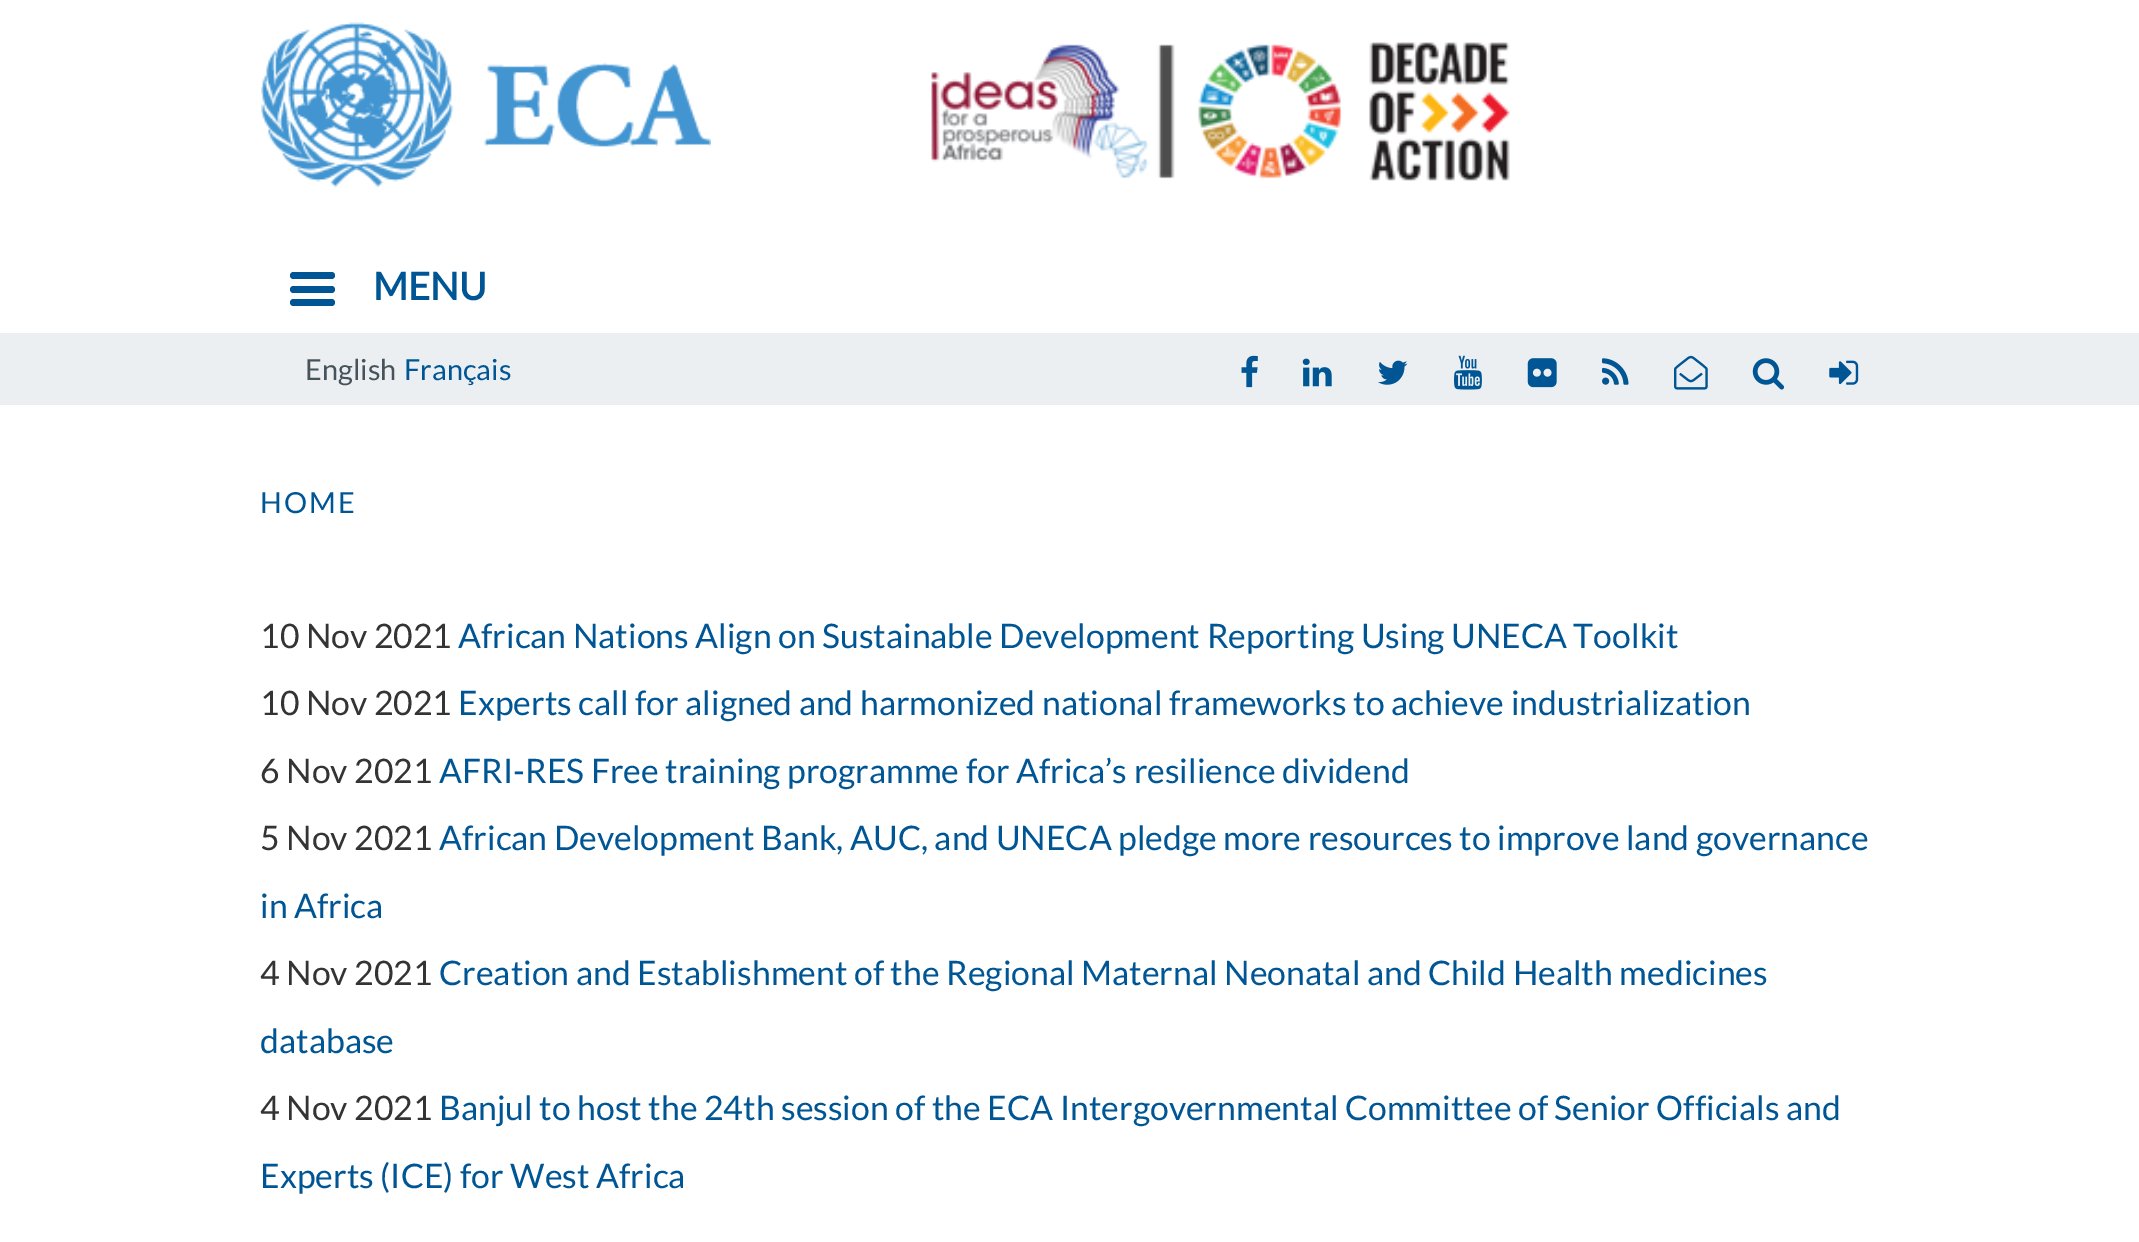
%!PS
<< /PageSize [2139 1242] >> setpagedevice
/mt/moveto load def
/fl/fill load def
/co { dup -16 bitshift 255 div exch dup -8 bitshift 255 and 255 div exch 255 and 255 div setrgbcolor } def
/fn { [ exch dup neg 0 0 3 -1 roll 0 0 ] selectfont } def
/tx { co fn moveto show } def
/bx { co rectfill } def
/rr { 5 dict begin { /r /h /w /y /x } { exch def } forall
  x r add y moveto x w add y 2 copy h add r arct x w add y h add x 1 index r arct
  x y h add x y r arct x y 2 copy exch w add exch r arct closepath end } def
/im { 5 dict begin { /h /w /y /x /name } { exch def } forall
  gsave x y translate w h scale
  w h 8 [w 0 0 h 0 0] name (r) file false 3 colorimage grestore end } def
0 1242 translate 1 -1 scale
4 setmiterlimit
0 0 2139 1242 16#FFFFFF bx
(media/1.raw) 261 22 450 165 im
(media/2.raw) 931 42 579 139 im
16#005694 co
290 272 45 7 3.5 rr fl
290 286 45 7 3.5 rr fl
290 299 45 7 3.5 rr fl
0 333 2139 72 16#ECEFF1 bx
(media/3.raw) 1241 355 17 33 im
(media/4.raw) 1302 358 30 29 im
(media/5.raw) 1378 360 30 25 im
(media/6.raw) 1454 355 28 35 im
(media/7.raw) 1527 358 30 30 im
(media/8.raw) 1602 358 27 27 im
(media/9.raw) 1674 355 34 35 im
(media/10.raw) 1752 358 33 32 im
(media/11.raw) 1829 360 30 25 im
(MENU) 373 300 /Lato-Bold 38 16#005694 tx
(English) 305 380 /Lato-Regular 29 16#46535B tx
(Français) 404 380 /Lato-Regular 29 16#005694 tx
260 513 mt 2 0 (HOME) ashow
(10 Nov 2021) 260 648 /Lato-Regular 33.75 16#343434 tx
(African Nations Align on Sustainable Development Reporting Using UNECA Toolkit) 458 648 /Lato-Regular 33.75 16#005694 tx
(10 Nov 2021) 260 715 /Lato-Regular 33.75 16#343434 tx
(Experts call for aligned and harmonized national frameworks to achieve industrialization) 458 715 /Lato-Regular 33.75 16#005694 tx
(6 Nov 2021) 260 783 /Lato-Regular 33.75 16#343434 tx
(AFRI-RES Free training programme for Africa’s resilience dividend) 439 783 /Lato-Regular 33.75 16#005694 tx
(5 Nov 2021) 260 850 /Lato-Regular 33.75 16#343434 tx
(African Development Bank, AUC, and UNECA pledge more resources to improve land governance) 439 850 /Lato-Regular 33.75 16#005694 tx
(in Africa) 260 918 /Lato-Regular 33.75 16#005694 tx
(4 Nov 2021) 260 985 /Lato-Regular 33.75 16#343434 tx
(Creation and Establishment of the Regional Maternal Neonatal and Child Health medicines) 439 985 /Lato-Regular 33.75 16#005694 tx
(database) 260 1053 /Lato-Regular 33.75 16#005694 tx
(4 Nov 2021) 260 1120 /Lato-Regular 33.75 16#343434 tx
(Banjul to host the 24th session of the ECA Intergovernmental Committee of Senior Officials and) 439 1120 /Lato-Regular 33.75 16#005694 tx
(Experts \(ICE\) for West Africa) 260 1188 /Lato-Regular 33.75 16#005694 tx
showpage
